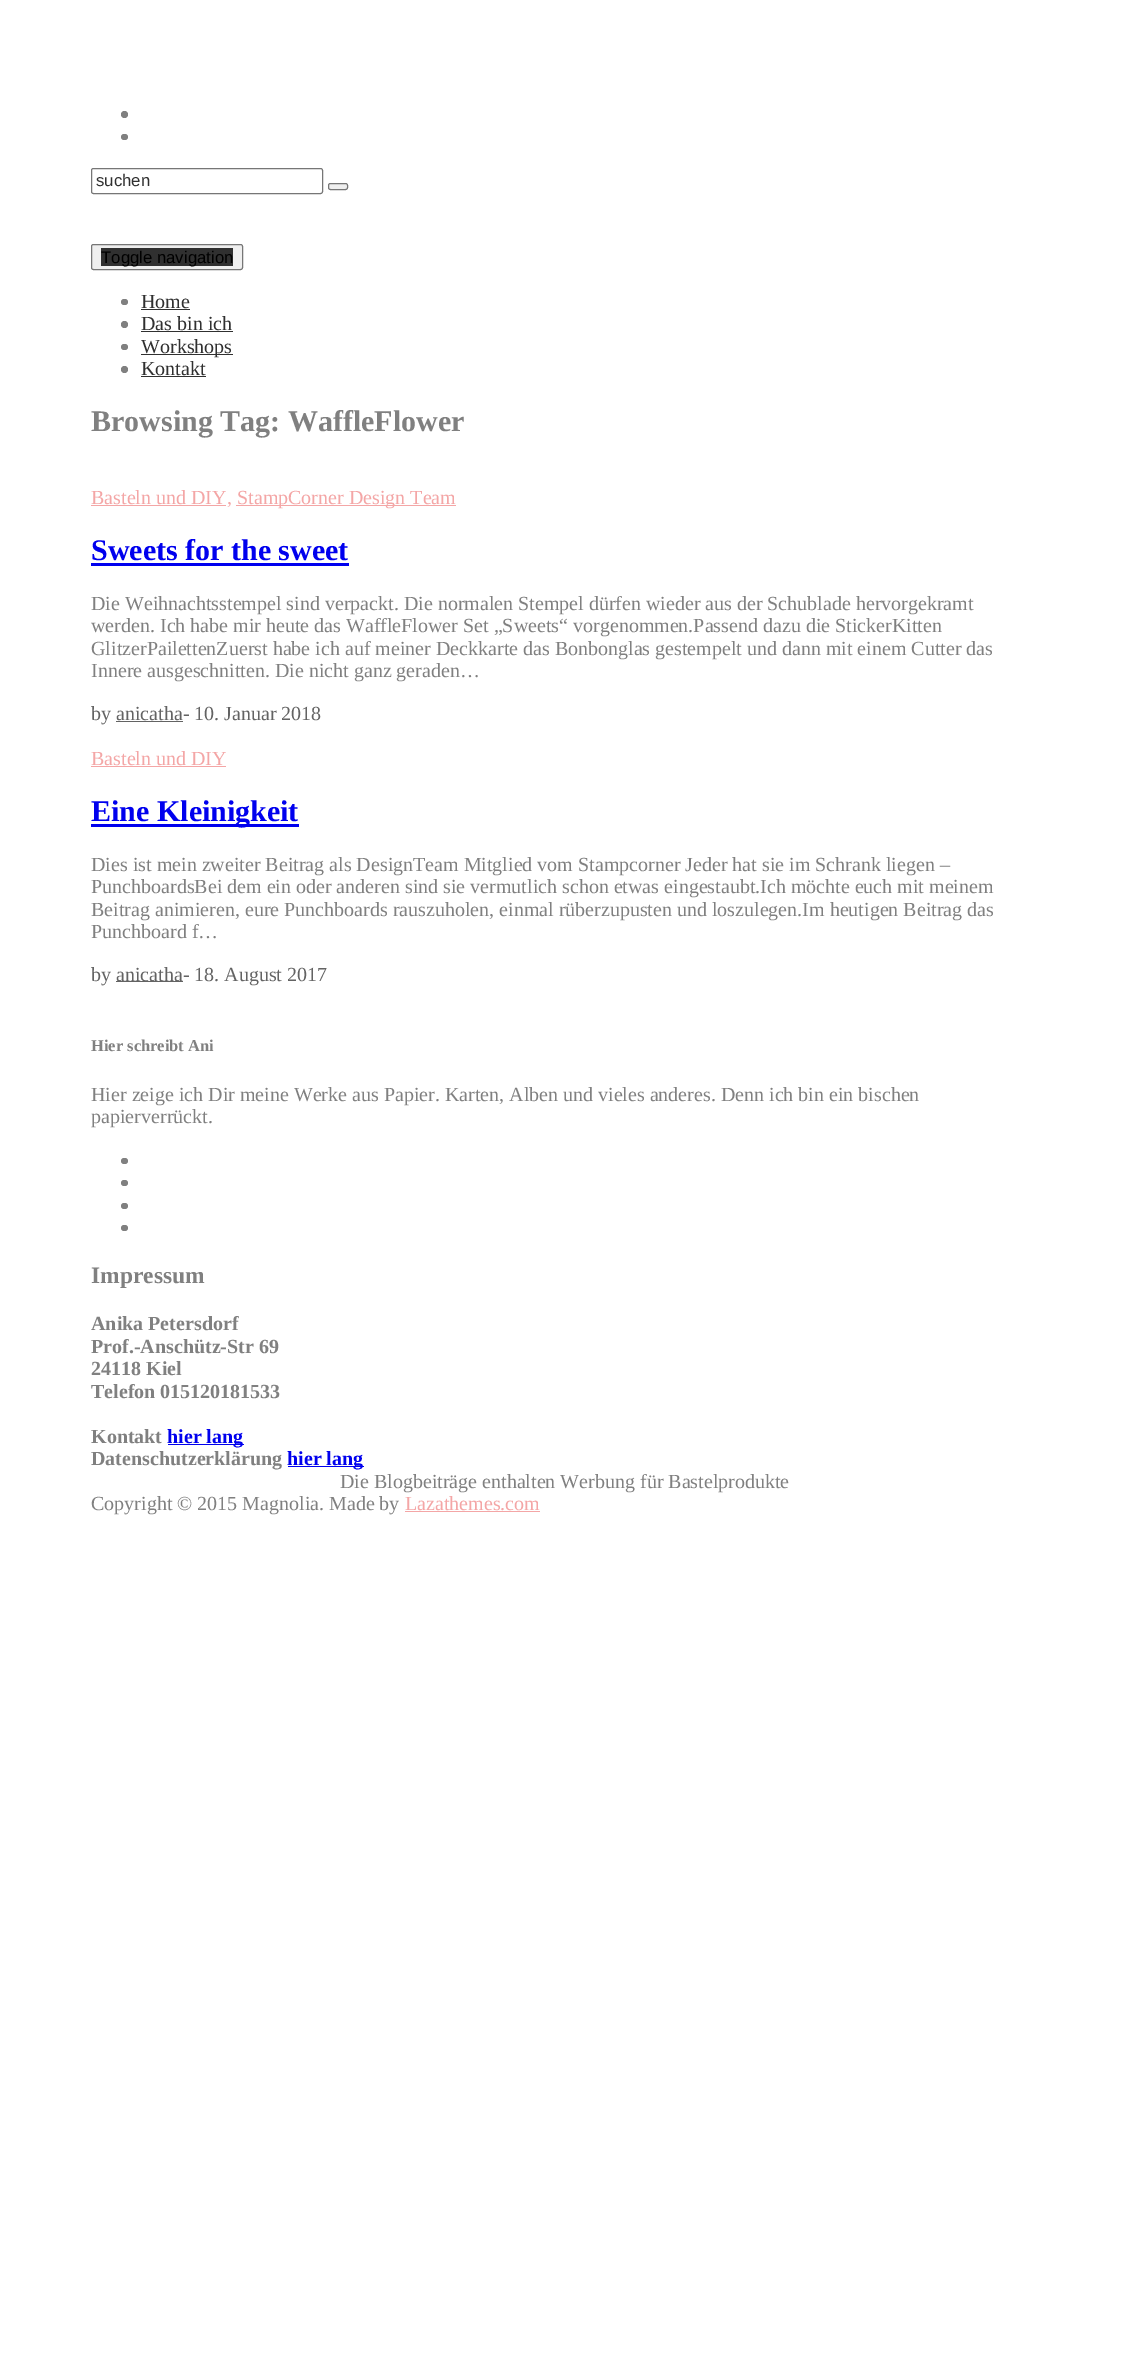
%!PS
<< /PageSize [1130 2366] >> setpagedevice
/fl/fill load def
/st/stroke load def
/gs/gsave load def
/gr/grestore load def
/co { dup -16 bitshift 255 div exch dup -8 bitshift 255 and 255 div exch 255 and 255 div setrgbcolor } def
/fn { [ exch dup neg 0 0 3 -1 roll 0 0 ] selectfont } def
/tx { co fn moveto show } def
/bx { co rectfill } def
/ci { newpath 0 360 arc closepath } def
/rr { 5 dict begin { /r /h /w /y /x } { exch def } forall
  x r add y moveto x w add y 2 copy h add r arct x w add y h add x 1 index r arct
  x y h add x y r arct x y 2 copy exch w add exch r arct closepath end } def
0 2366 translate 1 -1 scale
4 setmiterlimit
0 0 1130 2366 16#FFFFFF bx
16#808080 co
124.5 114.5 3.5 ci fl
121 134 7 6 3 rr fl
16#767676 co
91.5 168.5 231 25 2 rr st
16#EFEFEF co
328.5 183.5 19 6 2 rr gs fl gr
16#767676 co
st
16#EFEFEF co
91.5 244.5 151 25 2 rr gs fl gr
16#767676 co
st
101 248 132 18 16#303030 bx
16#808080 co
121 299 7 6 3 rr fl
141 309 49 1 16#303030 bx
16#808080 co
124.5 324.5 3.5 ci fl
141 331 92 1 16#303030 bx
16#808080 co
121 344 7 6 3 rr fl
141 354 92 1 16#303030 bx
16#808080 co
124.5 369.5 3.5 ci fl
141 376 65 1 16#303030 bx
91 505 135 1 16#F4A6A6 bx
236 505 220 1 16#F4A6A6 bx
91 563 258 3 16#0000EE bx
116 721 67 1 16#636363 bx
91 766 135 1 16#F4A6A6 bx
91 824 208 3 16#0000EE bx
116 981 67 1 16#636363 bx
16#808080 co
121 1158 7 6 3 rr fl
121 1180 7 6 3 rr fl
121 1203 7 6 3 rr fl
121 1225 7 6 3 rr fl
168 1444 76 1 16#0000EE bx
288 1466 76 1 16#0000EE bx
405 1511 135 1 16#F4A6A6 bx
(suchen) 96 186 /LiberationSans-Regular 16.75 16#303030 tx
(Toggle navigation) 101 263 /LiberationSans-Regular 16.75 16#000000 tx
(Home) 141 308 /LiberationSerif-Regular 20 16#303030 tx
(Das bin ich) 141 330 /LiberationSerif-Regular 20 16#303030 tx
(Workshops) 141 353 /LiberationSerif-Regular 20 16#303030 tx
(Kontakt) 141 375 /LiberationSerif-Regular 20 16#303030 tx
(Browsing Tag: WaffleFlower) 91 431 /LiberationSerif-Bold 30 16#808080 tx
(Basteln und DIY,) 91 504 /LiberationSerif-Regular 20 16#F4A6A6 tx
(StampCorner Design Team) 237 504 /LiberationSerif-Regular 20 16#F4A6A6 tx
(Sweets for the sweet) 91 560 /LiberationSerif-Bold 30 16#0000EE tx
(Die Weihnachtsstempel sind verpackt. Die normalen Stempel dürfen wieder aus der Schublade hervorgekramt) 91 610 /LiberationSerif-Regular 20 16#808080 tx
(werden. Ich habe mir heute das WaffleFlower Set „Sweets“ vorgenommen.Passend dazu die StickerKitten) 91 632 /LiberationSerif-Regular 20 16#808080 tx
(GlitzerPailettenZuerst habe ich auf meiner Deckkarte das Bonbonglas gestempelt und dann mit einem Cutter das) 91 655 /LiberationSerif-Regular 20 16#808080 tx
(Innere ausgeschnitten. Die nicht ganz geraden…) 91 677 /LiberationSerif-Regular 20 16#808080 tx
(by anicatha- 10. Januar 2018) 91 720 /LiberationSerif-Regular 20 16#636363 tx
(Basteln und DIY) 91 765 /LiberationSerif-Regular 20 16#F4A6A6 tx
(Eine Kleinigkeit) 91 821 /LiberationSerif-Bold 30 16#0000EE tx
(Dies ist mein zweiter Beitrag als DesignTeam Mitglied vom Stampcorner Jeder hat sie im Schrank liegen –) 91 871 /LiberationSerif-Regular 20 16#808080 tx
(PunchboardsBei dem ein oder anderen sind sie vermutlich schon etwas eingestaubt.Ich möchte euch mit meinem) 91 893 /LiberationSerif-Regular 20 16#808080 tx
(Beitrag animieren, eure Punchboards rauszuholen, einmal rüberzupusten und loszulegen.Im heutigen Beitrag das) 91 916 /LiberationSerif-Regular 20 16#808080 tx
(Punchboard f…) 91 938 /LiberationSerif-Regular 20 16#808080 tx
(by) 91 981 /LiberationSerif-Regular 20 16#636363 tx
(anicatha- 18. August 2017) 116 981 /LiberationSerif-Regular 20 16#636363 tx
(Hier schreibt Ani) 91 1051 /LiberationSerif-Bold 16.5 16#808080 tx
(Hier zeige ich Dir meine Werke aus Papier. Karten, Alben und vieles anderes. Denn ich bin ein bischen) 91 1101 /LiberationSerif-Regular 20 16#808080 tx
(papierverrückt.) 91 1123 /LiberationSerif-Regular 20 16#808080 tx
(Impressum) 91 1283 /LiberationSerif-Bold 23.5 16#808080 tx
(Anika Petersdorf) 91 1330 /LiberationSerif-Bold 20 16#808080 tx
(Prof.-Anschütz-Str 69) 91 1353 /LiberationSerif-Bold 20 16#808080 tx
(24118 Kiel) 91 1375 /LiberationSerif-Bold 20 16#808080 tx
(Telefon 015120181533) 91 1398 /LiberationSerif-Bold 20 16#808080 tx
(Kontakt) 91 1443 /LiberationSerif-Bold 20 16#808080 tx
(hier lang) 167 1443 /LiberationSerif-Bold 20 16#0000EE tx
(Datenschutzerklärung) 91 1465 /LiberationSerif-Bold 20 16#808080 tx
(hier lang) 287 1465 /LiberationSerif-Bold 20 16#0000EE tx
(Die Blogbeiträge enthalten Werbung für Bastelprodukte) 340 1488 /LiberationSerif-Regular 20 16#808080 tx
(Copyright © 2015 Magnolia. Made by) 91 1510 /LiberationSerif-Regular 20 16#808080 tx
(Lazathemes.com) 405 1510 /LiberationSerif-Regular 20 16#F4A6A6 tx
showpage
